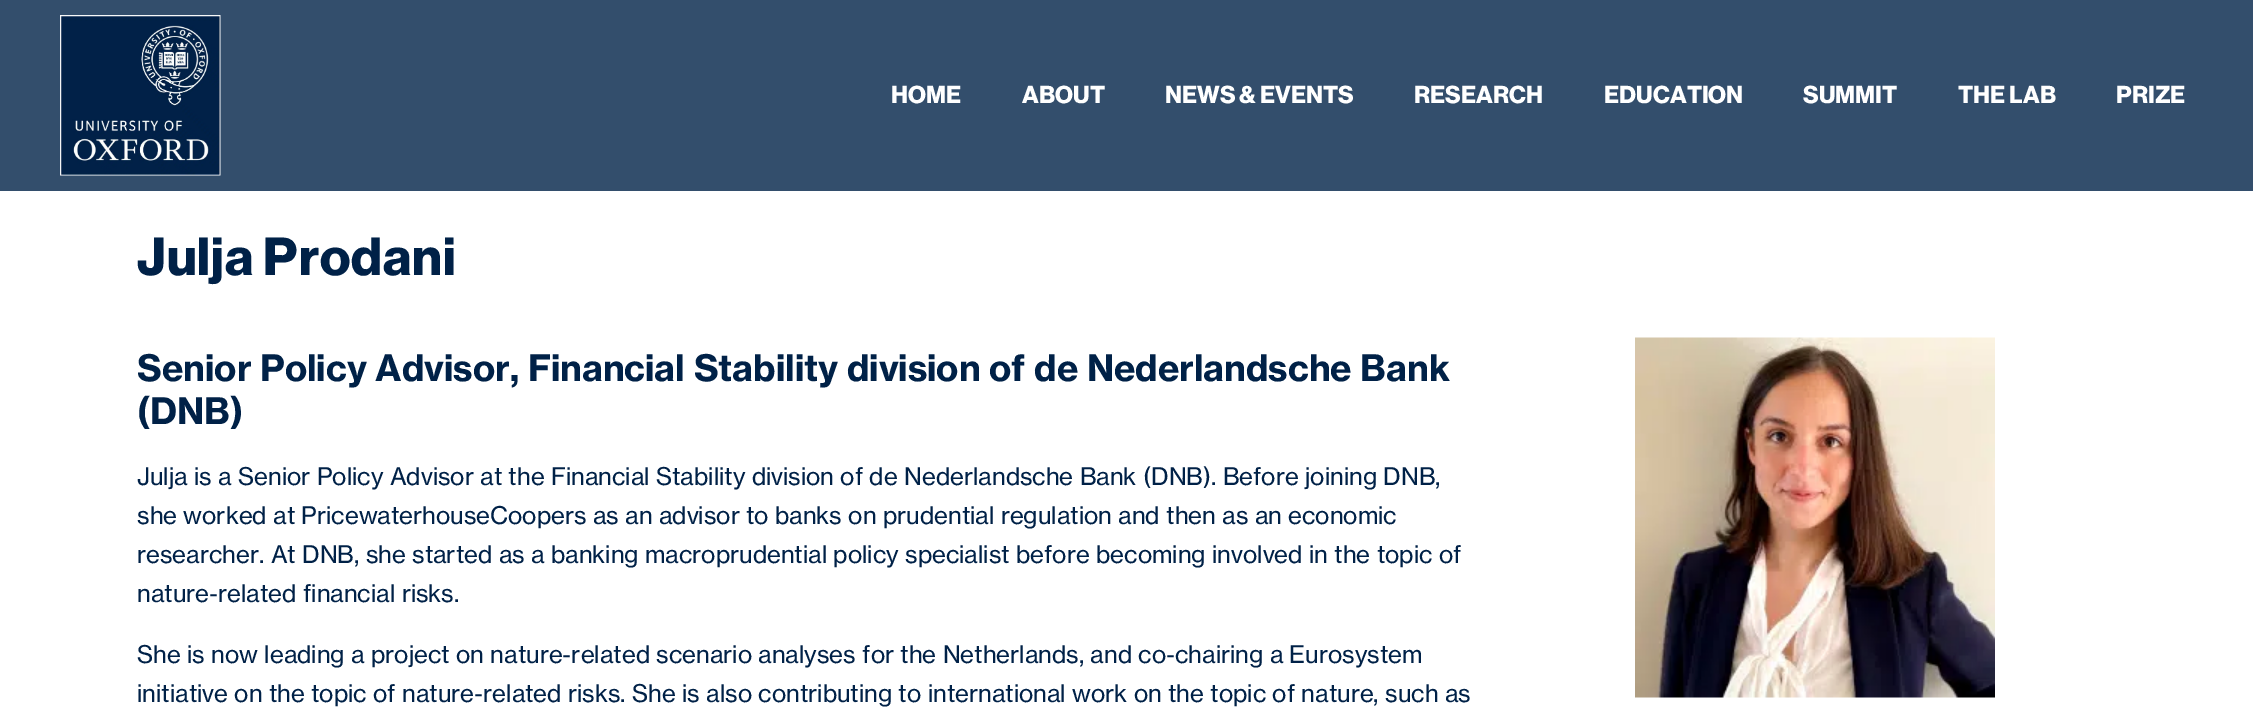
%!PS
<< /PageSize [2253 711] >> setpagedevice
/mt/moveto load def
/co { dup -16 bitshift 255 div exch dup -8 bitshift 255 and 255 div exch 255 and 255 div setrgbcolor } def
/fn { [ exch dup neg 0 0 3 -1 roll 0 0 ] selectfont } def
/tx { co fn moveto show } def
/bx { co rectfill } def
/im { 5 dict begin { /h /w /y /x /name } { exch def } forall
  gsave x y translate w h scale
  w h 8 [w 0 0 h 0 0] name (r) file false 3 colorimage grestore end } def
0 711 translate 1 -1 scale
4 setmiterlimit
0 0 2253 711 16#FFFFFF bx
0 0 2253 191 16#334E6C bx
(media/1.raw) 60 15 161 161 im
(media/2.raw) 1635 337 360 361 im
/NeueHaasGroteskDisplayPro-Bold 24 fn
16#FFFFFF co
891 103 mt .1 0 (HOME) ashow
1022 103 mt .1 0 (ABOUT) ashow
1165 103 mt .1 0 (NEWS & EVENTS) ashow
1414 103 mt .1 0 (RESEARCH) ashow
1604 103 mt .1 0 (EDUCATION) ashow
1803 103 mt .1 0 (SUMMIT) ashow
1958 103 mt .1 0 (THE LAB) ashow
2116 103 mt .1 0 (PRIZE) ashow
/NeueHaasGroteskDisplayPro-Bold 52.5 fn
16#002147 co
137 275 mt 1 0 (Julja Prodani) ashow
(Senior Policy Advisor, Financial Stability division of de Nederlandsche Bank) 137 381 /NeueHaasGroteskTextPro-Bold 36 16#002147 tx
(\(DNB\)) 137 424 /NeueHaasGroteskTextPro-Bold 36 16#002147 tx
(Julja is a Senior Policy Advisor at the Financial Stability division of de Nederlandsche Bank \(DNB\). Before joining DNB,) 137 485 /NeueHaasGroteskTextPro-Regular 24 16#002147 tx
(she worked at PricewaterhouseCoopers as an advisor to banks on prudential regulation and then as an economic) 137 524 /NeueHaasGroteskTextPro-Regular 24 16#002147 tx
(researcher. At DNB, she started as a banking macroprudential policy specialist before becoming involved in the topic of) 137 563 /NeueHaasGroteskTextPro-Regular 24 16#002147 tx
(nature-related financial risks.) 137 602 /NeueHaasGroteskTextPro-Regular 24 16#002147 tx
(She is now leading a project on nature-related scenario analyses for the Netherlands, and co-chairing a Eurosystem) 137 663 /NeueHaasGroteskTextPro-Regular 24 16#002147 tx
(initiative on the topic of nature-related risks. She is also contributing to international work on the topic of nature, such as) 137 702 /NeueHaasGroteskTextPro-Regular 24 16#002147 tx
showpage
